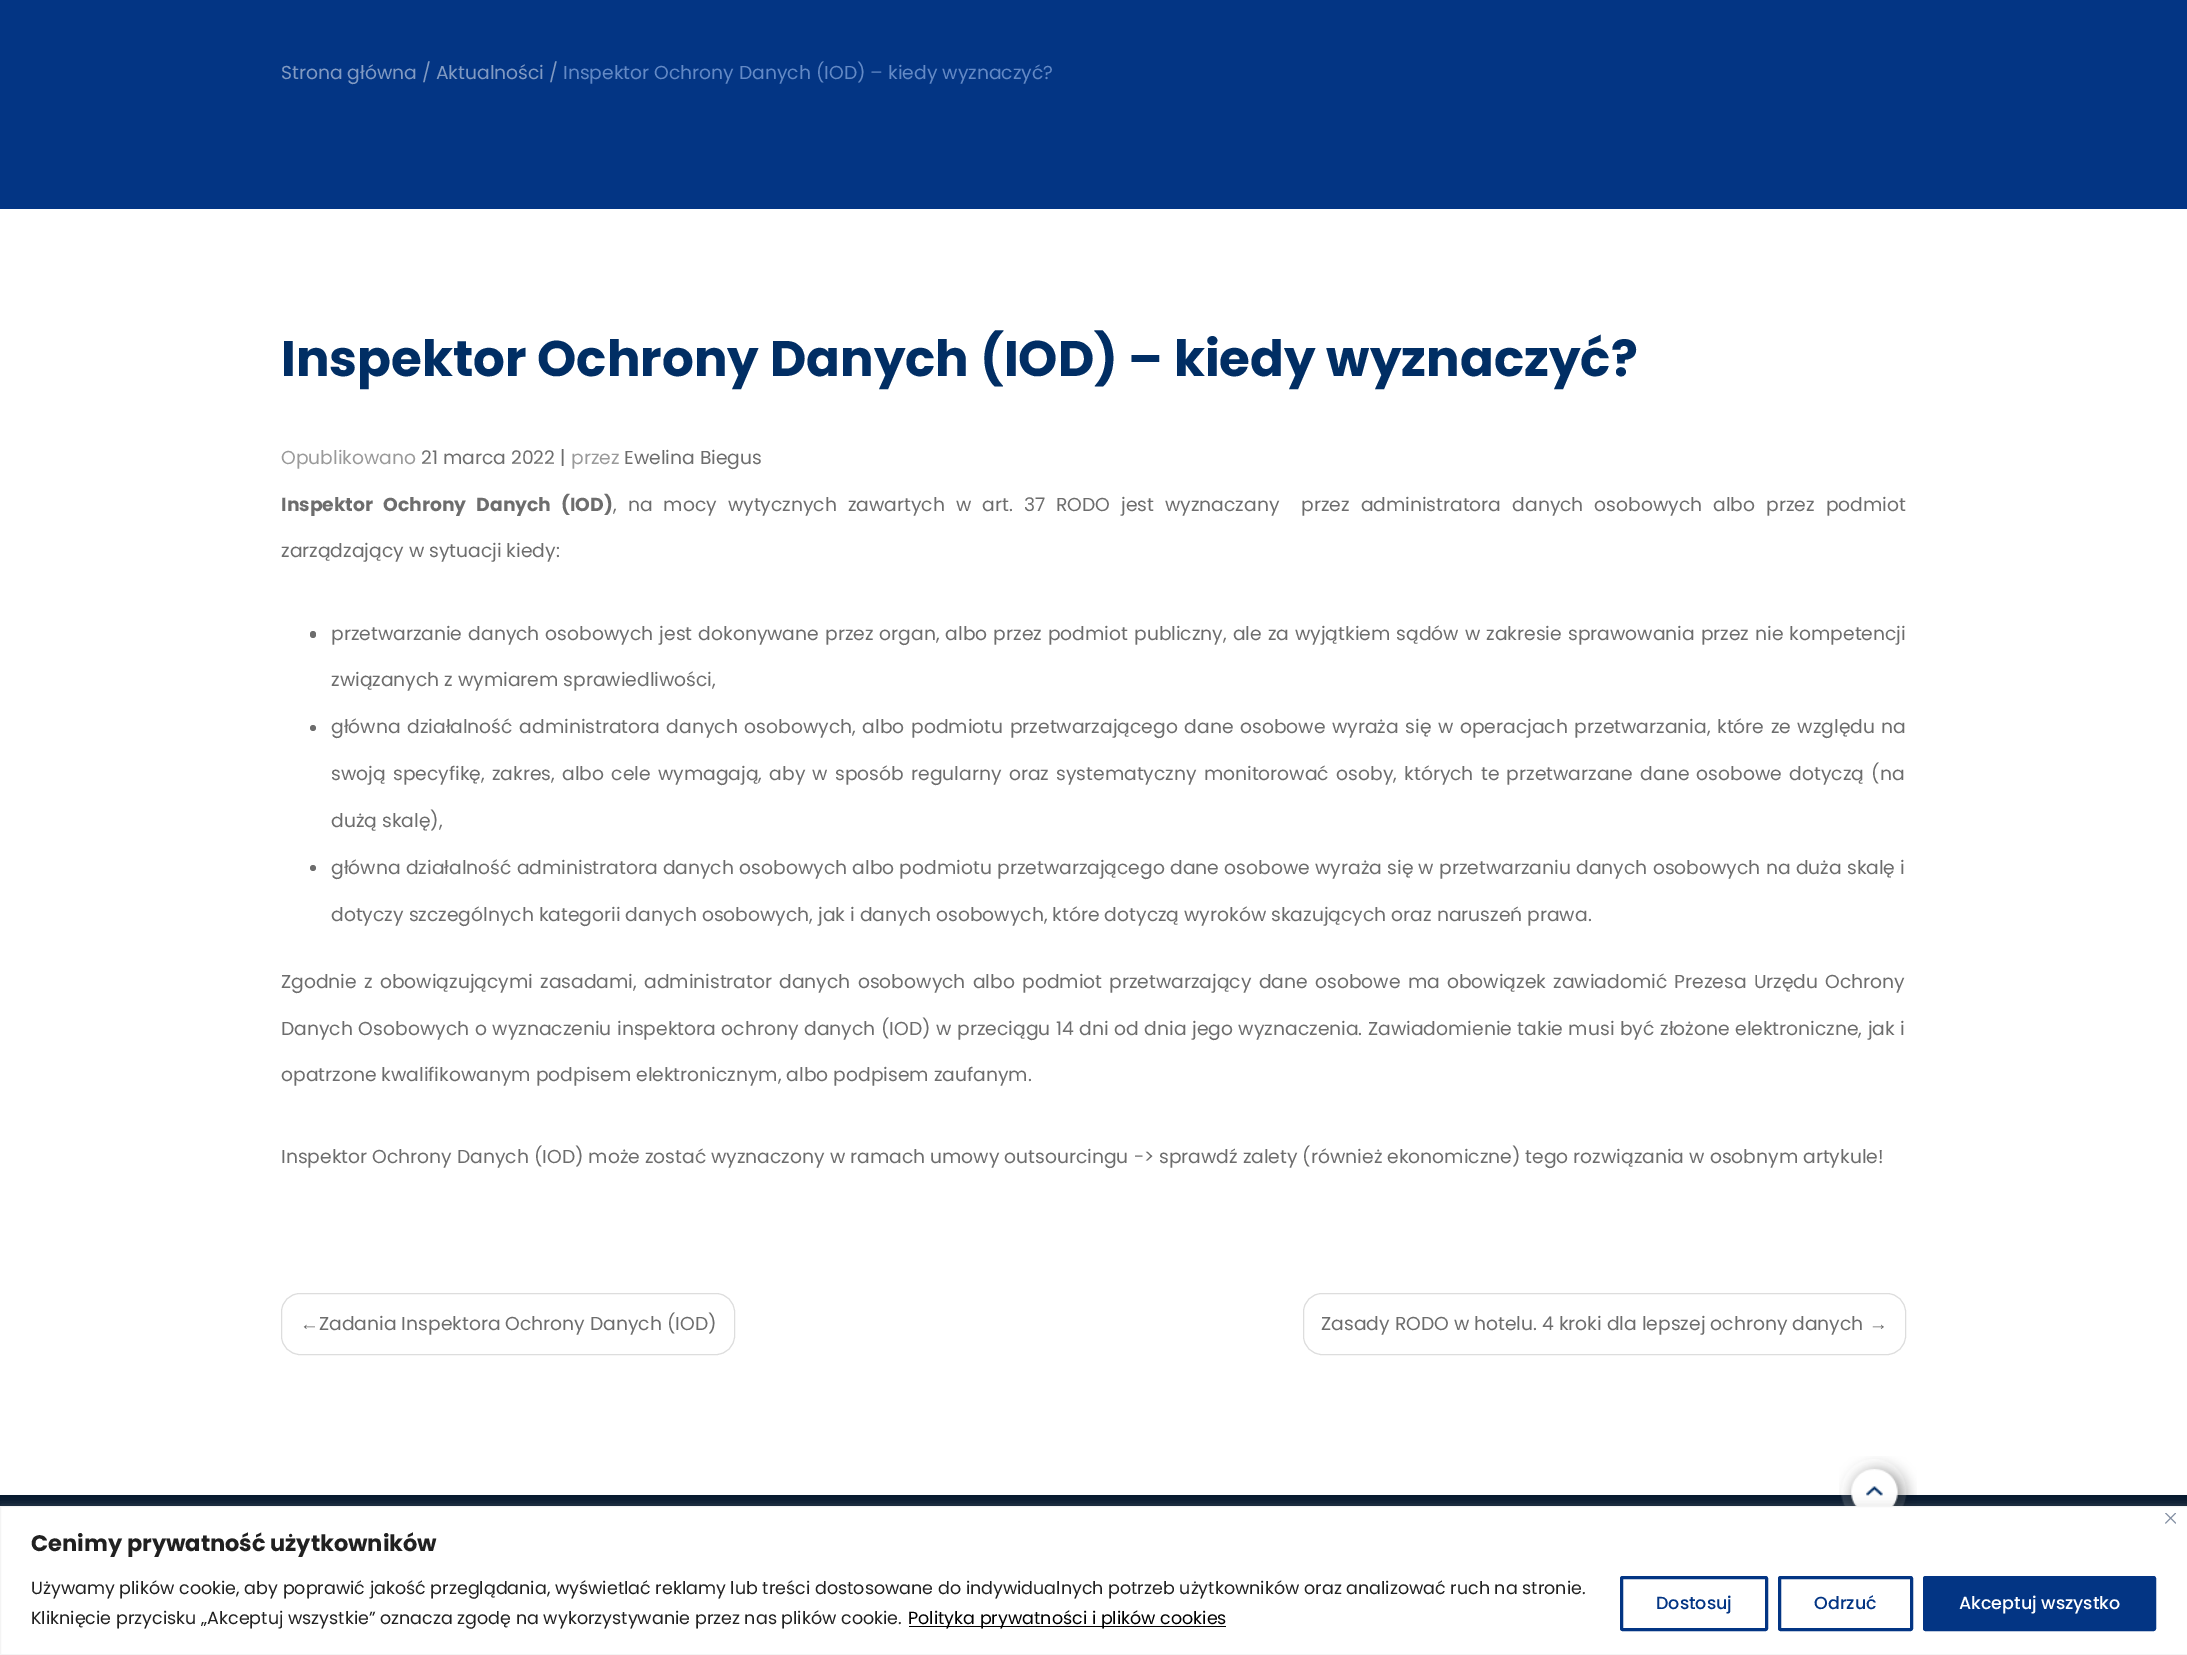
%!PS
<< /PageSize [2187 1655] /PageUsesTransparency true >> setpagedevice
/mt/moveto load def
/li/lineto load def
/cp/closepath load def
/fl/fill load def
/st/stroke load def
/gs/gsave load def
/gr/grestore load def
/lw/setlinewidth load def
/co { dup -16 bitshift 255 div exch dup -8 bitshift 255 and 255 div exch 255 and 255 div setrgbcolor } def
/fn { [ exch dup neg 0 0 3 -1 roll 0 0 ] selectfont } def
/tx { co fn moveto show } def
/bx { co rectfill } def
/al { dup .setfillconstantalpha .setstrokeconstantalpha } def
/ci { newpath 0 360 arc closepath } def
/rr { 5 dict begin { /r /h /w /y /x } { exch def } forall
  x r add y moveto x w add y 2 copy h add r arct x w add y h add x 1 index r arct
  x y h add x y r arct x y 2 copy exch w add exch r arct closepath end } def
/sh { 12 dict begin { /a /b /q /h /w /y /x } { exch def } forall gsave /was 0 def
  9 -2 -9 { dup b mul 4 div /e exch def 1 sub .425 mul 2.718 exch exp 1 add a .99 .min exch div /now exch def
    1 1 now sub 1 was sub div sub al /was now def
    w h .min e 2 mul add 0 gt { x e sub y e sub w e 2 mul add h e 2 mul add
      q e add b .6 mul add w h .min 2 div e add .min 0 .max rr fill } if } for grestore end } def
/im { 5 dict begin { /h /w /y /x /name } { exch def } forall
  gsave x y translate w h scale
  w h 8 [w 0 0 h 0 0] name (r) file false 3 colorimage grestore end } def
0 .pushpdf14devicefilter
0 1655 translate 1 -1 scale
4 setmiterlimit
0 0 2187 1655 16#FFFFFF bx
0 0 2187 209 16#033584 bx
16#6D6D6D co
310 631 6 7 3 rr fl
313 728 3 ci fl
313 868 3 ci fl
16#DDDDDD co
281.5 1293.5 453 61 18.5 rr st
1303.5 1293.5 602 61 18.5 rr st
0 1495 2187 11 16#03162C bx
(media/1.raw) 1839 1456 78 50 im
16#ACABAB co
0 1505 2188 149 0 6 .3 sh
16#FFFFFF co
.5 1506.5 mt 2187.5 1506.5 li 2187.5 1654.5 li .5 1654.5 li cp gs fl gr
16#F4F4F4 co
st
(media/2.raw) 2165 1513 11 11 im
909 1626 317 1 16#000000 bx
16#033584 co
3 lw
1621.5 1577.5 145 52 1 rr st
1779.5 1577.5 132 52 1 rr st
1924.5 1577.5 230 52 1 rr gs fl gr
st
(Strona główna / Aktualności /) 281 79 /Poppins-Regular 18.75 16#819AC2 tx
(Inspektor Ochrony Danych \(IOD\) – kiedy wyznaczyć?) 563 79 /Poppins-Regular 18.75 16#6389C5 tx
(Inspektor Ochrony Danych \(IOD\) – kiedy wyznaczyć?) 281 376 /Poppins-Bold 50 16#012E64 tx
(Opublikowano) 281 464 /Poppins-Regular 18.75 16#9A9A9A tx
(21 marca 2022 |) 421 464 /Poppins-Regular 18.75 16#6D6D6D tx
(przez) 571 464 /Poppins-Regular 18.75 16#9A9A9A tx
(Ewelina Biegus) 624 464 /Poppins-Regular 18.75 16#6D6D6D tx
/Poppins-Bold 18.75 fn
281 511 mt 6 0 32 (Inspektor Ochrony Danych \(IOD\)) widthshow
/Poppins-Regular 18.75 fn
613 511 mt 6 0 32 (, na mocy wytycznych zawartych w art. 37 RODO jest wyznaczany  przez administratora danych osobowych albo przez podmiot) widthshow
(zarządzający w sytuacji kiedy:) 281 557 /Poppins-Regular 18.75 16#6D6D6D tx
331 640 mt 1.05 0 32 (przetwarzanie danych osobowych jest dokonywane przez organ, albo przez podmiot publiczny, ale za wyjątkiem sądów w zakresie sprawowania przez nie kompetencji) widthshow
(związanych z wymiarem sprawiedliwości,) 331 686 /Poppins-Regular 18.75 16#6D6D6D tx
331 733 mt 1.6 0 32 (główna działalność administratora danych osobowych, albo podmiotu przetwarzającego dane osobowe wyraża się w operacjach przetwarzania, które ze względu na) widthshow
331 780 mt 2.25 0 32 (swoją specyfikę, zakres, albo cele wymagają, aby w sposób regularny oraz systematyczny monitorować osoby, których te przetwarzane dane osobowe dotyczą \(na) widthshow
(dużą skalę\),) 331 827 /Poppins-Regular 18.75 16#6D6D6D tx
331 874 mt .3 0 32 (główna działalność administratora danych osobowych albo podmiotu przetwarzającego dane osobowe wyraża się w przetwarzaniu danych osobowych na duża skalę i) widthshow
(dotyczy szczególnych kategorii danych osobowych, jak i danych osobowych, które dotyczą wyroków skazujących oraz naruszeń prawa.) 331 921 /Poppins-Regular 18.75 16#6D6D6D tx
281 988 mt 2.25 0 32 (Zgodnie z obowiązującymi zasadami, administrator danych osobowych albo podmiot przetwarzający dane osobowe ma obowiązek zawiadomić Prezesa Urzędu Ochrony) widthshow
281 1035 mt .6 0 32 (Danych Osobowych o wyznaczeniu inspektora ochrony danych \(IOD\) w przeciągu 14 dni od dnia jego wyznaczenia. Zawiadomienie takie musi być złożone elektroniczne, jak i) widthshow
(opatrzone kwalifikowanym podpisem elektronicznym, albo podpisem zaufanym.) 281 1081 /Poppins-Regular 18.75 16#6D6D6D tx
(Inspektor Ochrony Danych \(IOD\) może zostać wyznaczony w ramach umowy outsourcingu -> sprawdź zalety \(również ekonomiczne\) tego rozwiązania w osobnym artykule!) 281 1163 /Poppins-Regular 18.75 16#6D6D6D tx
(←) 300 1330 /LiberationSans-Regular 18.75 16#6D6D6D tx
(Zadania Inspektora Ochrony Danych \(IOD\)) 319 1330 /Poppins-Regular 18.75 16#6D6D6D tx
(Zasady RODO w hotelu. 4 kroki dla lepszej ochrony danych) 1321 1330 /Poppins-Regular 18.75 16#6D6D6D tx
(→) 1869 1330 /LiberationSans-Regular 18.75 16#6D6D6D tx
(Cenimy prywatność użytkowników) 31 1551 /Poppins-Bold 22.5 16#212121 tx
(Używamy plików cookie, aby poprawić jakość przeglądania, wyświetlać reklamy lub treści dostosowane do indywidualnych potrzeb użytkowników oraz analizować ruch na stronie.) 31 1594 /Poppins-Regular 17.5 16#212121 tx
(Kliknięcie przycisku „Akceptuj wszystkie” oznacza zgodę na wykorzystywanie przez nas plików cookie.) 31 1624 /Poppins-Regular 17.5 16#212121 tx
(Polityka prywatności i plików cookies) 908 1624 /Poppins-Regular 17.5 16#000000 tx
(Dostosuj) 1656 1609 /Poppins-Medium 17.5 16#033584 tx
(Odrzuć) 1814 1609 /Poppins-Medium 17.5 16#033584 tx
(Akceptuj wszystko) 1959 1609 /Poppins-Medium 17.5 16#FFFFFF tx
.poppdf14devicefilter showpage
